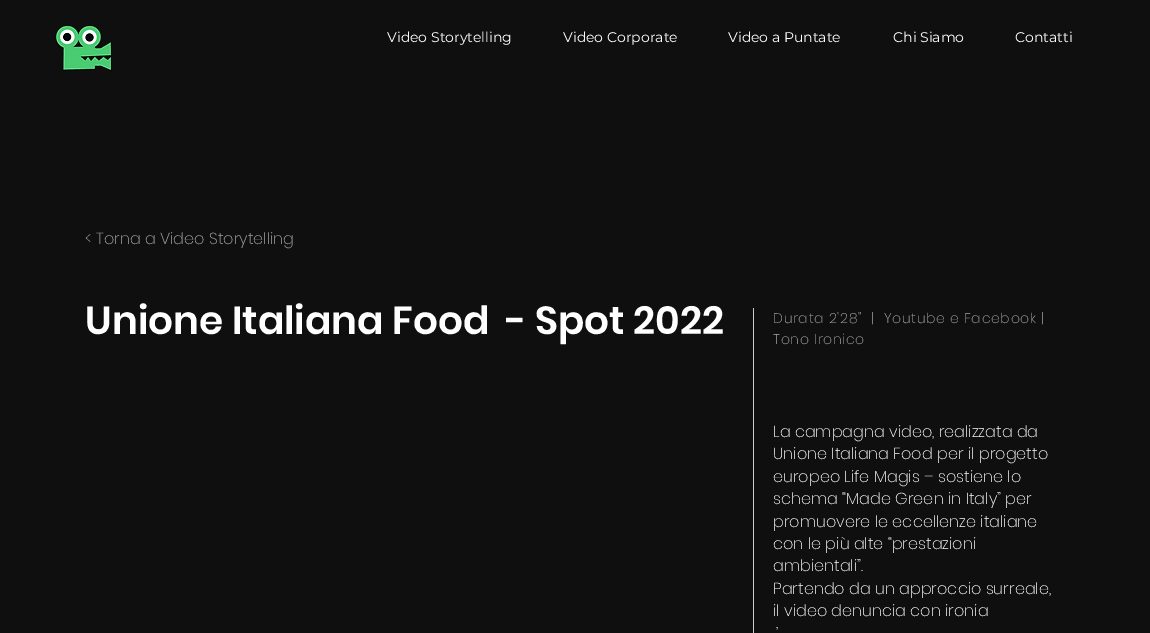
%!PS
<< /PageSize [1150 633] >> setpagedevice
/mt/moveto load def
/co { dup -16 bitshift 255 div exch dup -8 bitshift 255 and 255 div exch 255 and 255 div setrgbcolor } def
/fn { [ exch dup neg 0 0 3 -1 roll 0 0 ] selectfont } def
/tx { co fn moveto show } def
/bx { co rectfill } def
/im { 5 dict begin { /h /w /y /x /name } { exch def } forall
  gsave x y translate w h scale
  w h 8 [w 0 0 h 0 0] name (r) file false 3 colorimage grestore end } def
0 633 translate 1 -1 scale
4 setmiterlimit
0 0 1150 633 16#0F0F0F bx
(media/1.raw) 55 25 57 46 im
753 308 1 325 16#CCCACA bx
(Video Storytelling) 387 42 /Montserrat-Regular 14 16#FFFFFF tx
(Video Corporate) 563 42 /Montserrat-Regular 14 16#FFFFFF tx
(Video a Puntate) 728 42 /Montserrat-Regular 14 16#FFFFFF tx
(Chi Siamo) 893 42 /Montserrat-Regular 14 16#FFFFFF tx
(Contatti) 1015 42 /Montserrat-Regular 14 16#FFFFFF tx
(< Torna a Video Storytelling) 85 244 /Poppins-ExtraLight 16 16#A8A8A8 tx
(Unione Italiana Food  - Spot 2022) 85 334 /Poppins-SemiBold 39 16#FFFFFF tx
/Poppins-ExtraLight 14 fn
16#A8A8A8 co
773 323 mt .7 0 (Durata 2'28"  |  Youtube e Facebook |) ashow
773 344 mt .7 0 (Tono Ironico) ashow
(La campagna video, realizzata da) 773 437 /Poppins-ExtraLight 16 16#FFFFFF tx
(Unione Italiana Food per il progetto) 773 459 /Poppins-ExtraLight 16 16#FFFFFF tx
(europeo Life Magis – sostiene lo) 773 482 /Poppins-ExtraLight 16 16#FFFFFF tx
(schema “Made Green in Italy” per) 773 504 /Poppins-ExtraLight 16 16#FFFFFF tx
(promuovere le eccellenze italiane) 773 527 /Poppins-ExtraLight 16 16#FFFFFF tx
(con le più alte “prestazioni) 773 549 /Poppins-ExtraLight 16 16#FFFFFF tx
(ambientali”.) 773 571 /Poppins-ExtraLight 16 16#FFFFFF tx
(Partendo da un approccio surreale,) 773 594 /Poppins-ExtraLight 16 16#FFFFFF tx
(il video denuncia con ironia) 773 616 /Poppins-ExtraLight 16 16#FFFFFF tx
(’) 776 639 /Poppins-ExtraLight 16 16#FFFFFF tx
showpage
